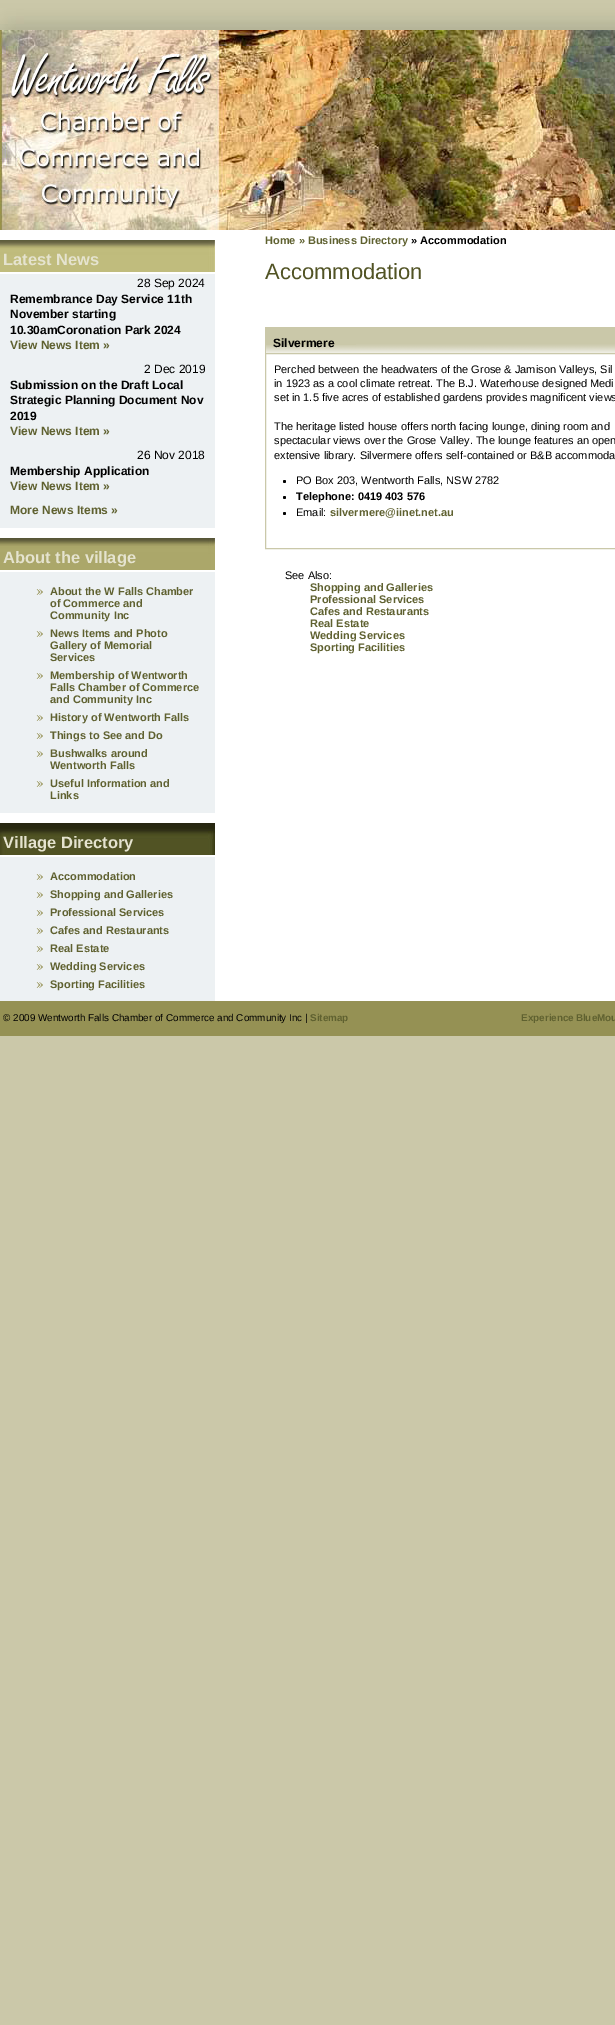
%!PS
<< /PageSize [615 2025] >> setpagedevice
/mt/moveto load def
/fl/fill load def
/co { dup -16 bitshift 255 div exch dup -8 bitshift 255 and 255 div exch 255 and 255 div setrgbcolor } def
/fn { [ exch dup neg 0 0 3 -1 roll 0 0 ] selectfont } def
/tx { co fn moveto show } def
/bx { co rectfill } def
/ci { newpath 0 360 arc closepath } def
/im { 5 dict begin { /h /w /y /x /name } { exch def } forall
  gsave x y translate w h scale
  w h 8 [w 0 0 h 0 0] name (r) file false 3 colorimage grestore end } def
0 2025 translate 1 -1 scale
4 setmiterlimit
0 0 615 2025 16#CBC8A9 bx
(media/1.raw) 0 0 615 30 im
(media/2.raw) 0 30 615 200 im
0 230 615 771 16#FFFFFF bx
(media/3.raw) 0 240 215 32 im
0 274 215 254 16#EDF1F3 bx
(media/4.raw) 0 538 215 32 im
0 572 215 241 16#EDF1F3 bx
(media/5.raw) 36 589 7 6 im
(media/5.raw) 36 631 7 6 im
(media/5.raw) 36 673 7 6 im
(media/5.raw) 36 715 7 6 im
(media/5.raw) 36 733 7 6 im
(media/5.raw) 36 751 7 6 im
(media/5.raw) 36 781 7 6 im
(media/6.raw) 0 823 215 32 im
0 857 215 144 16#EDF1F3 bx
(media/5.raw) 36 874 7 6 im
(media/5.raw) 36 892 7 6 im
(media/5.raw) 36 910 7 6 im
(media/5.raw) 36 928 7 6 im
(media/5.raw) 36 946 7 6 im
(media/5.raw) 36 964 7 6 im
(media/5.raw) 36 982 7 6 im
(media/7.raw) 265 327 350 26 im
16#CAC8A9 co
265.5 353.5 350 195 rectstroke
16#000000 co
284.5 481.5 1.5 ci fl
284.5 497.5 1.5 ci fl
284.5 513.5 1.5 ci fl
0 1001 615 35 16#959154 bx
(Latest News) 3 265 /LiberationSans-Bold 16.5 16#E5E3CF tx
(28 Sep 2024) 137 287 /LiberationSans-Regular 12 16#000000 tx
(Remembrance Day Service 11th) 10 303 /LiberationSans-Bold 12 16#000000 tx
(November starting) 10 318 /LiberationSans-Bold 12 16#000000 tx
(10.30amCoronation Park 2024) 10 334 /LiberationSans-Bold 12 16#000000 tx
(View News Item ») 10 349 /LiberationSans-Bold 12 16#5F6130 tx
(2 Dec 2019) 144 373 /LiberationSans-Regular 12 16#000000 tx
(Submission on the Draft Local) 10 389 /LiberationSans-Bold 12 16#000000 tx
(Strategic Planning Document Nov) 10 404 /LiberationSans-Bold 12 16#000000 tx
(2019) 10 420 /LiberationSans-Bold 12 16#000000 tx
(View News Item ») 10 435 /LiberationSans-Bold 12 16#5F6130 tx
(26 Nov 2018) 137 459 /LiberationSans-Regular 12 16#000000 tx
(Membership Application) 10 475 /LiberationSans-Bold 12 16#000000 tx
(View News Item ») 10 490 /LiberationSans-Bold 12 16#5F6130 tx
(More News Items ») 10 514 /LiberationSans-Bold 12 16#5F6130 tx
(About the village) 3 563 /LiberationSans-Bold 16.5 16#E5E3CF tx
(About the W Falls Chamber) 50 595 /LiberationSans-Bold 11 16#5F6130 tx
(of Commerce and) 50 607 /LiberationSans-Bold 11 16#5F6130 tx
(Community Inc) 50 619 /LiberationSans-Bold 11 16#5F6130 tx
(News Items and Photo) 50 637 /LiberationSans-Bold 11 16#5F6130 tx
(Gallery of Memorial) 50 649 /LiberationSans-Bold 11 16#5F6130 tx
(Services) 50 661 /LiberationSans-Bold 11 16#5F6130 tx
(Membership of Wentworth) 50 679 /LiberationSans-Bold 11 16#5F6130 tx
(Falls Chamber of Commerce) 50 691 /LiberationSans-Bold 11 16#5F6130 tx
(and Community Inc) 50 703 /LiberationSans-Bold 11 16#5F6130 tx
(History of Wentworth Falls) 50 721 /LiberationSans-Bold 11 16#5F6130 tx
(Things to See and Do) 50 739 /LiberationSans-Bold 11 16#5F6130 tx
(Bushwalks around) 50 757 /LiberationSans-Bold 11 16#5F6130 tx
(Wentworth Falls) 50 769 /LiberationSans-Bold 11 16#5F6130 tx
(Useful Information and) 50 787 /LiberationSans-Bold 11 16#5F6130 tx
(Links) 50 799 /LiberationSans-Bold 11 16#5F6130 tx
(Village Directory) 3 848 /LiberationSans-Bold 16.5 16#E5E3CF tx
(Accommodation) 50 880 /LiberationSans-Bold 11 16#5F6130 tx
(Shopping and Galleries) 50 898 /LiberationSans-Bold 11 16#5F6130 tx
(Professional Services) 50 916 /LiberationSans-Bold 11 16#5F6130 tx
(Cafes and Restaurants) 50 934 /LiberationSans-Bold 11 16#5F6130 tx
(Real Estate) 50 952 /LiberationSans-Bold 11 16#5F6130 tx
(Wedding Services) 50 970 /LiberationSans-Bold 11 16#5F6130 tx
(Sporting Facilities) 50 988 /LiberationSans-Bold 11 16#5F6130 tx
(Home » Business Directory) 265 244 /LiberationSans-Bold 11 16#5F6130 tx
(» Accommodation) 411 244 /LiberationSans-Bold 11 16#000000 tx
(Accommodation) 265 279 /LiberationSans-Regular 22 16#515324 tx
(Silvermere) 273 347 /LiberationSans-Bold 12 16#000000 tx
(Perched between the headwaters of the Grose & Jamison Valleys, Sil) 274 373 /LiberationSans-Regular 11 16#000000 tx
(in 1923 as a cool climate retreat. The B.J. Waterhouse designed Medi) 274 387 /LiberationSans-Regular 11 16#000000 tx
(set in 1.5 five acres of established gardens provides magnificent views) 274 401 /LiberationSans-Regular 11 16#000000 tx
(The heritage listed house offers north facing lounge, dining room and) 274 430 /LiberationSans-Regular 11 16#000000 tx
(spectacular views over the Grose Valley. The lounge features an open) 274 444 /LiberationSans-Regular 11 16#000000 tx
(extensive library. Silvermere offers self-contained or B&B accommoda) 274 459 /LiberationSans-Regular 11 16#000000 tx
(PO Box 203, Wentworth Falls, NSW 2782) 296 484 /LiberationSans-Regular 11 16#000000 tx
(Telephone: 0419 403 576) 296 500 /LiberationSans-Bold 11 16#000000 tx
(Email:) 296 516 /LiberationSans-Regular 11 16#000000 tx
(silvermere@iinet.net.au) 330 516 /LiberationSans-Bold 11 16#5F6130 tx
(See Also:) 285 579 /LiberationSans-Regular 11 16#000000 tx
(Shopping and Galleries) 310 591 /LiberationSans-Bold 11 16#5F6130 tx
(Professional Services) 310 603 /LiberationSans-Bold 11 16#5F6130 tx
(Cafes and Restaurants) 310 615 /LiberationSans-Bold 11 16#5F6130 tx
(Real Estate) 310 627 /LiberationSans-Bold 11 16#5F6130 tx
(Wedding Services) 310 639 /LiberationSans-Bold 11 16#5F6130 tx
(Sporting Facilities) 310 651 /LiberationSans-Bold 11 16#5F6130 tx
(© 2009 Wentworth Falls Chamber of Commerce and Community Inc |) 3 1021 /LiberationSans-Regular 9.9 16#000000 tx
(Sitemap) 310 1021 /LiberationSans-Bold 9.9 16#5F6130 tx
521 1021 mt -1 0 32 (Experience BlueMou) widthshow
showpage
